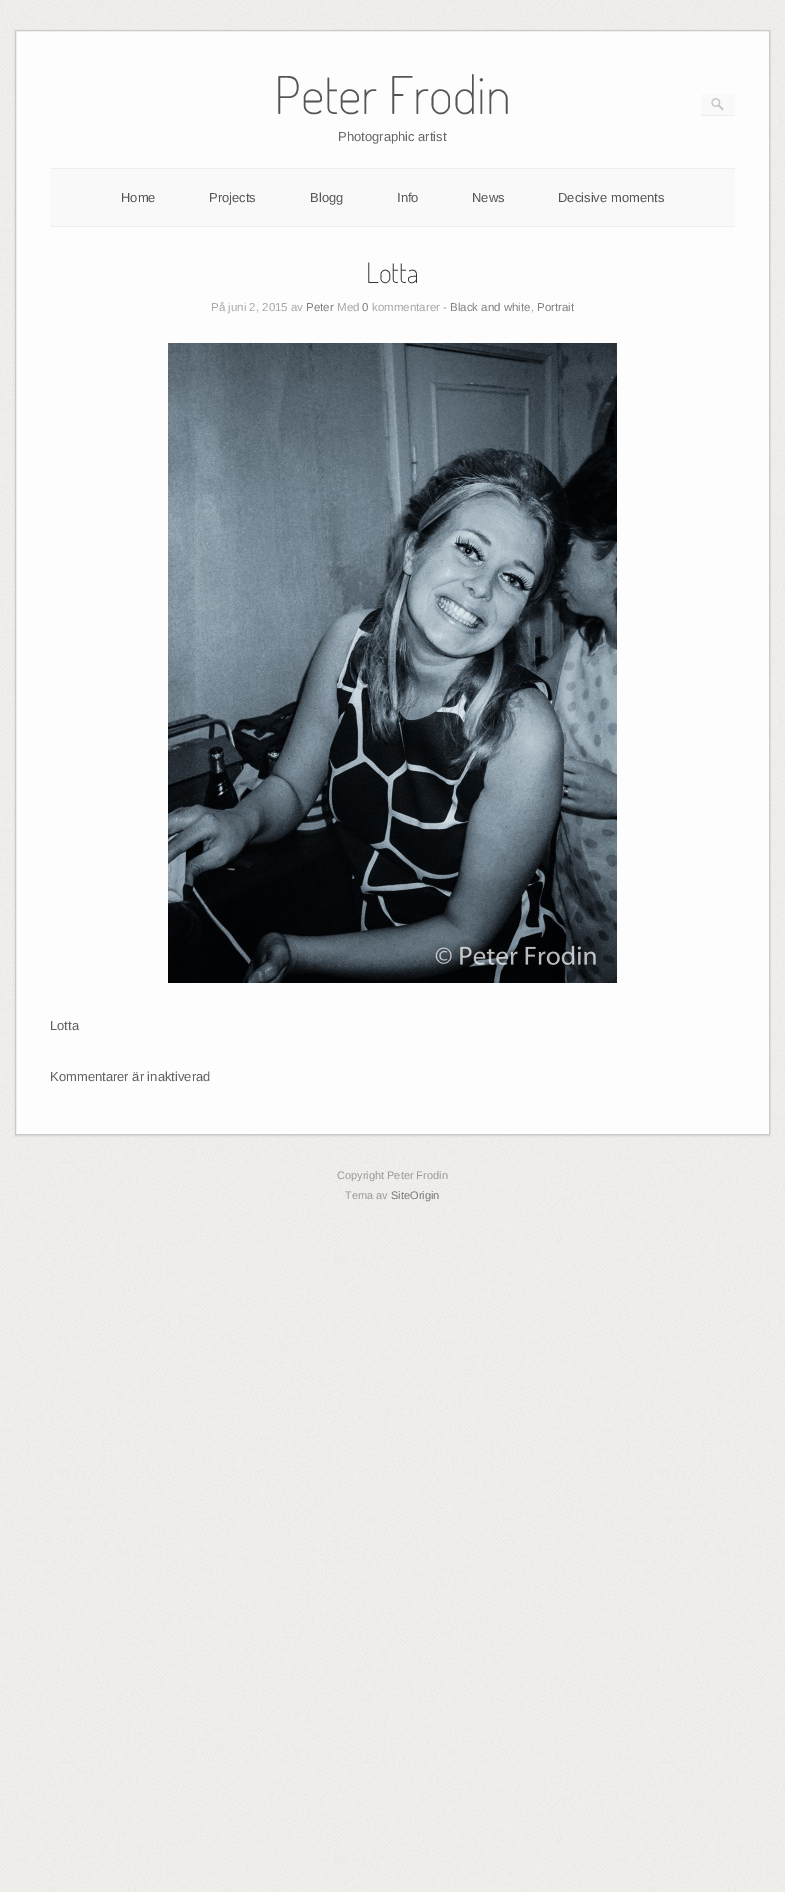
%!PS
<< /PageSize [785 1892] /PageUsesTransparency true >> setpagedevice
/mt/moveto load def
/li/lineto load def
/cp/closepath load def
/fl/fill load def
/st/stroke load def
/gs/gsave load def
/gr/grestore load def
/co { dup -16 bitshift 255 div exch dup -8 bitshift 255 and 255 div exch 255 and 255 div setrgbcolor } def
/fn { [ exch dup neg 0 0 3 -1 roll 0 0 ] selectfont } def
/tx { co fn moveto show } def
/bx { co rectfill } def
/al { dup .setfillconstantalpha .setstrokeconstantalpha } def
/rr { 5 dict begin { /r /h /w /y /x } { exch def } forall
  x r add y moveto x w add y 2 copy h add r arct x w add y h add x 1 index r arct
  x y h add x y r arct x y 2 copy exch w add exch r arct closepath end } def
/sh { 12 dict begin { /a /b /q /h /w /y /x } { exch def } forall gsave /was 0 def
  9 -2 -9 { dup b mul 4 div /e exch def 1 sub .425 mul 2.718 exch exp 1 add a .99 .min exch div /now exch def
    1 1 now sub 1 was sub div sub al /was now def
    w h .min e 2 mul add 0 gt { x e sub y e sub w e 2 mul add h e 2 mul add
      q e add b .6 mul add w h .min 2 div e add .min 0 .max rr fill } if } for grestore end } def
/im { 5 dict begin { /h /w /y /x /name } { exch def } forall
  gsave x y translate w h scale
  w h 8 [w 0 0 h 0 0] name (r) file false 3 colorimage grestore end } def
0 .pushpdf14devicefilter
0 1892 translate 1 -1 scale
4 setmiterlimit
0 0 785 1892 16#FFFFFF bx
(media/1.raw) 0 0 785 1892 im
16#000000 co
15 31 755 1105 0 1 .1 sh
16#FDFDFD co
15.5 30.5 mt 769.5 30.5 li 769.5 1134.5 li 15.5 1134.5 li cp gs fl gr
16#CBC9C7 co
st
701 94 34 21 16#F9F9F9 bx
(media/2.raw) 711 98 13 13 im
701 115 34 1 16#EEEEEE bx
50 169 685 57 16#F9F9F9 bx
50 168 685 1 16#EEEEEE bx
50 226 685 1 16#EEEEEE bx
(media/3.raw) 168 343 449 640 im
(Peter Frodin) 274 114 /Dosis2-ExtraLight 52 16#555555 tx
(Photographic artist) 338 141 /LiberationSans-Regular 13 16#666666 tx
(Home) 121 202 /LiberationSans-Regular 13 16#555555 tx
(Projects) 209 202 /LiberationSans-Regular 13 16#555555 tx
(Blogg) 310 202 /LiberationSans-Regular 13 16#555555 tx
(Info) 397 202 /LiberationSans-Regular 13 16#555555 tx
(News) 472 202 /LiberationSans-Regular 13 16#555555 tx
(Decisive moments) 558 202 /LiberationSans-Regular 13 16#555555 tx
(Lotta) 366 283 /Dosis-ExtraLight 28 16#333333 tx
(På juni 2, 2015 av) 211 311 /LiberationSans-Regular 11.5 16#A6A6A6 tx
(Peter) 306 311 /LiberationSans-Regular 11.5 16#808080 tx
(Med) 337 311 /LiberationSans-Regular 11.5 16#A6A6A6 tx
(0) 362 311 /LiberationSans-Regular 11.5 16#808080 tx
(kommentarer -) 372 311 /LiberationSans-Regular 11.5 16#A6A6A6 tx
(Black and white) 450 311 /LiberationSans-Regular 11.5 16#808080 tx
(,) 531 311 /LiberationSans-Regular 11.5 16#A6A6A6 tx
(Portrait) 537 311 /LiberationSans-Regular 11.5 16#808080 tx
(Lotta) 50 1030 /LiberationSans-Regular 13 16#606060 tx
(Kommentarer är inaktiverad) 50 1081 /LiberationSans-Regular 13 16#606060 tx
(Copyright Peter Frodin) 337 1179 /LiberationSans-Regular 11 16#999999 tx
(Tema av) 345 1199 /LiberationSans-Regular 11 16#999999 tx
(SiteOrigin) 391 1199 /LiberationSans-Regular 11 16#777777 tx
.poppdf14devicefilter showpage
